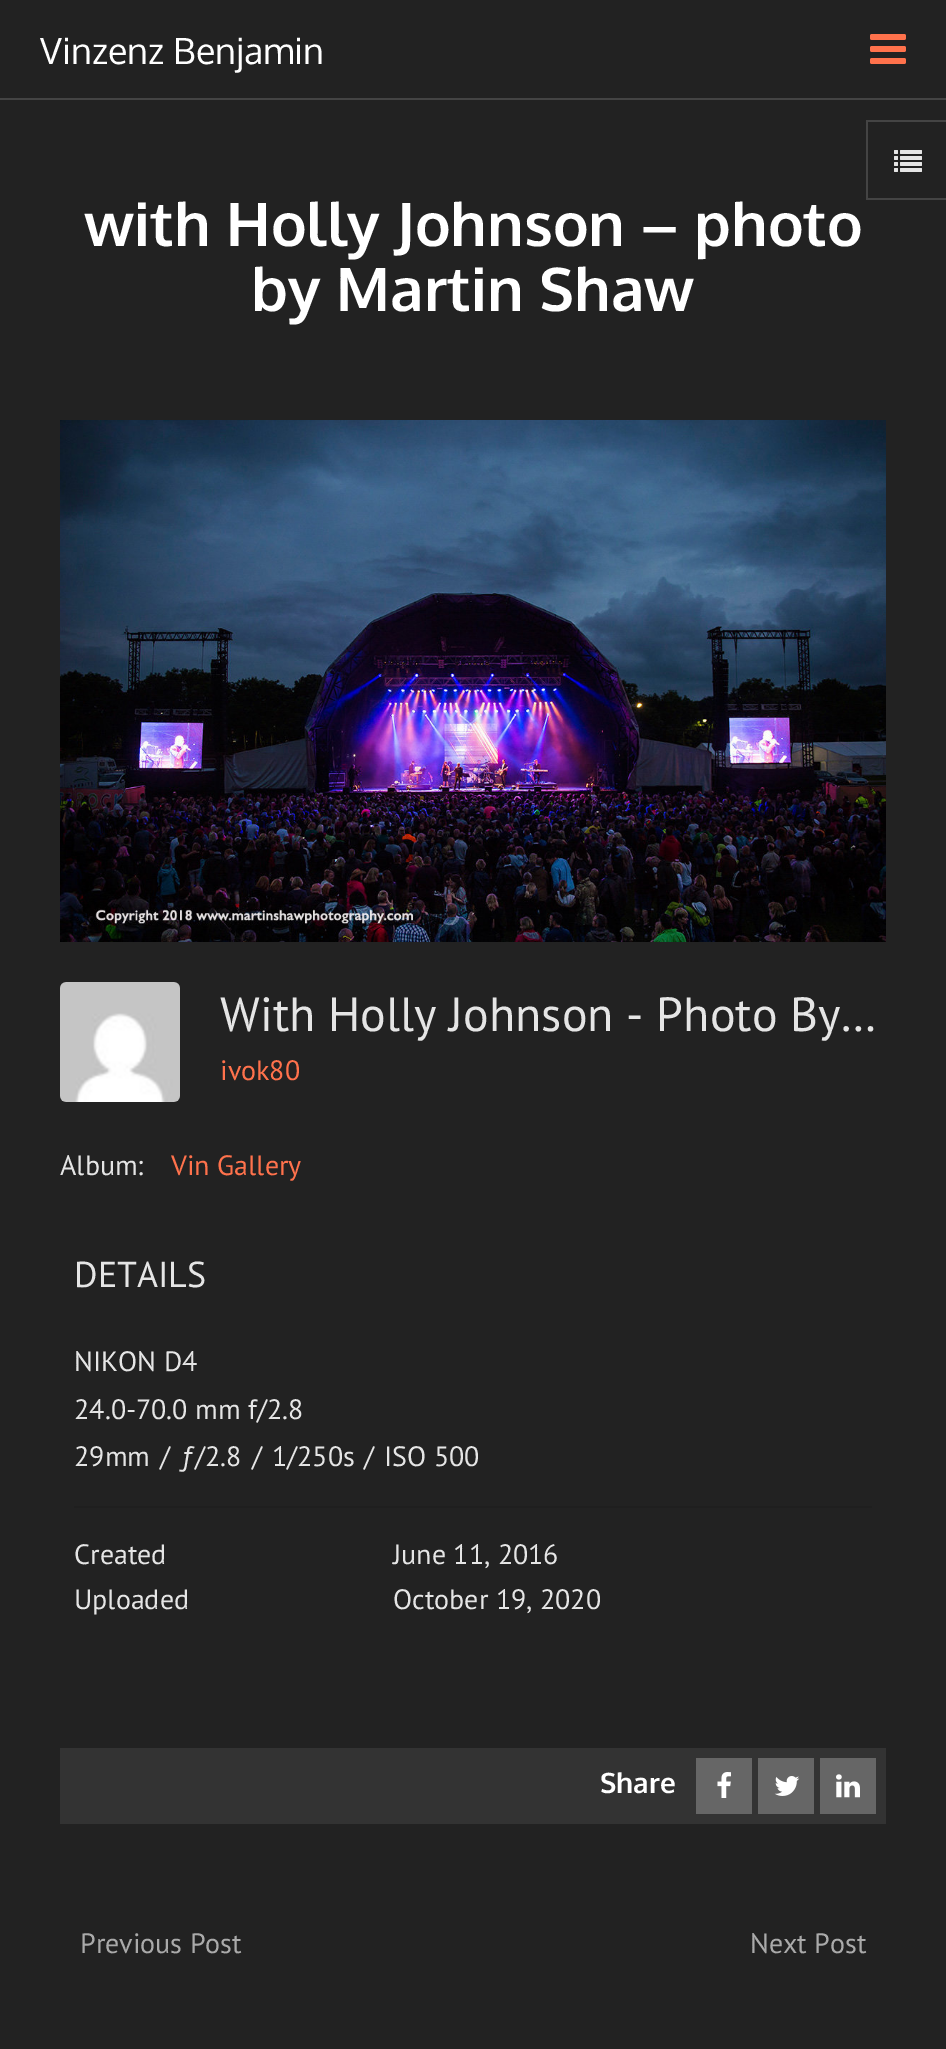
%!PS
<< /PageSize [946 2049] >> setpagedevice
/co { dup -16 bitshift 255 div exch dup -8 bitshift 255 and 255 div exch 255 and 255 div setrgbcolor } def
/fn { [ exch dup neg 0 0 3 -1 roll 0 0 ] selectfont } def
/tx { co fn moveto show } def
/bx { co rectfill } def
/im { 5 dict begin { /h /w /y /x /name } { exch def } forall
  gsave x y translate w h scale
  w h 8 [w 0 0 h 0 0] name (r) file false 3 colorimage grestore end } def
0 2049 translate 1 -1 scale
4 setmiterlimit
0 0 946 2049 16#222222 bx
0 98 946 2 16#444444 bx
(media/1.raw) 870 34 36 30 im
866 120 80 2 16#444444 bx
866 198 80 2 16#444444 bx
866 120 2 80 16#444444 bx
(media/2.raw) 894 150 28 22 im
(media/3.raw) 60 420 826 522 im
(media/4.raw) 60 982 120 120 im
74 1506 798 2 16#1F1F1F bx
60 1748 826 76 16#333333 bx
696 1758 56 56 16#666666 bx
(media/5.raw) 717 1772 14 26 im
758 1758 56 56 16#666666 bx
(media/6.raw) 774 1776 26 20 im
820 1758 56 56 16#666666 bx
(media/7.raw) 836 1774 24 24 im
(Vinzenz Benjamin) 40 64 /Oxygen-Regular 36 16#FFFFFF tx
(with Holly Johnson – photo) 84 246 /Oxygen-Bold 60 16#FFFFFF tx
(by Martin Shaw) 251 311 /Oxygen-Bold 60 16#FFFFFF tx
(With Holly Johnson - Photo By…) 220 1031 /PTSans-Regular 48 16#E5E5E5 tx
(ivok80) 220 1080 /PTSans-Regular 28 16#FF724C tx
(Album:) 60 1175 /PTSans-Regular 28 16#E5E5E5 tx
(Vin Gallery) 171 1175 /PTSans-Regular 28 16#FF724C tx
(DETAILS) 74 1287 /PTSans-Regular 36 16#E5E5E5 tx
(NIKON D4) 74 1371 /PTSans-Regular 28 16#E5E5E5 tx
(24.0-70.0 mm f/2.8) 74 1419 /PTSans-Regular 28 16#E5E5E5 tx
(29mm) 74 1466 /PTSans-Regular 28 16#E5E5E5 tx
(/) 160 1466 /PTSans-Regular 28 16#E5E5E5 tx
(ƒ/2.8) 180 1466 /PTSans-Regular 28 16#E5E5E5 tx
(/) 252 1466 /PTSans-Regular 28 16#E5E5E5 tx
(1/250s) 272 1466 /PTSans-Regular 28 16#E5E5E5 tx
(/) 364 1466 /PTSans-Regular 28 16#E5E5E5 tx
(ISO 500) 384 1466 /PTSans-Regular 28 16#E5E5E5 tx
(Created) 74 1564 /PTSans-Regular 28 16#E5E5E5 tx
(June 11, 2016) 393 1564 /PTSans-Regular 28 16#E5E5E5 tx
(Uploaded) 74 1609 /PTSans-Regular 28 16#E5E5E5 tx
(October 19, 2020) 393 1609 /PTSans-Regular 28 16#E5E5E5 tx
(Share) 600 1793 /Oxygen-Bold 28 16#FFFFFF tx
(Previous Post) 80 1953 /PTSans-Regular 28 16#AAAAAA tx
(Next Post) 750 1953 /PTSans-Regular 28 16#AAAAAA tx
showpage
